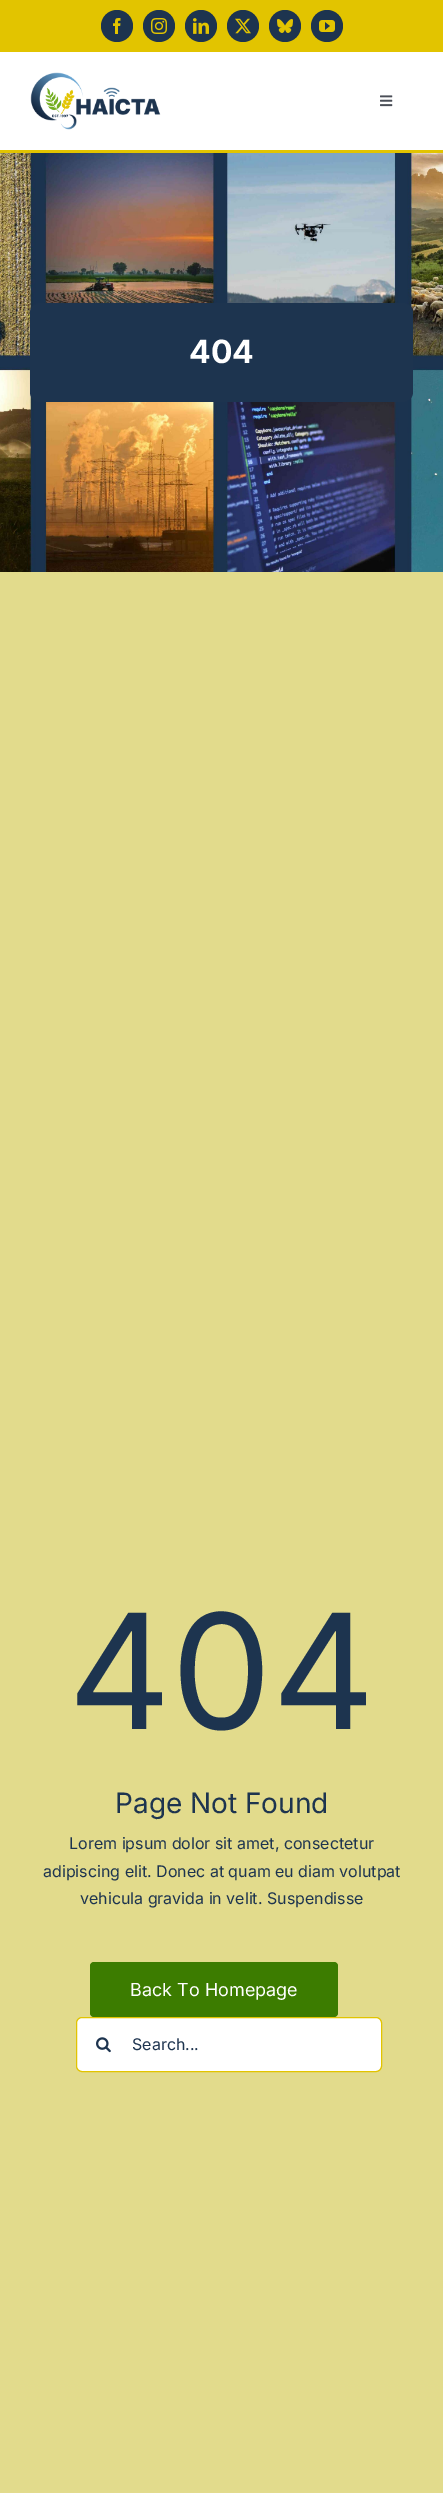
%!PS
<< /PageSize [443 2493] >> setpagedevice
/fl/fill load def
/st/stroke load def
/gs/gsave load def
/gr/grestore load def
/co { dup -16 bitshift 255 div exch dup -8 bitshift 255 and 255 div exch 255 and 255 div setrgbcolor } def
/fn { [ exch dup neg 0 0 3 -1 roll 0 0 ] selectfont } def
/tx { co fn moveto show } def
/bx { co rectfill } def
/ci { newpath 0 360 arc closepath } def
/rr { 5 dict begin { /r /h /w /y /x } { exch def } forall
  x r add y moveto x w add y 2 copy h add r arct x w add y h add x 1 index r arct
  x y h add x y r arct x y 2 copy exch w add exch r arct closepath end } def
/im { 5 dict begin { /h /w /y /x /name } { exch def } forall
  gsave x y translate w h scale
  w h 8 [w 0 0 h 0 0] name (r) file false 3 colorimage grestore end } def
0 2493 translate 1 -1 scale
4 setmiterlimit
0 0 443 2493 16#FFFFFF bx
0 0 443 52 16#E2C400 bx
16#1D344F co
117 26 16 ci fl
(media/1.raw) 113 18 8 16 im
159 26 16 ci fl
(media/2.raw) 151 18 16 16 im
201 26 16 ci fl
(media/3.raw) 193 18 16 16 im
243 26 16 ci fl
(media/4.raw) 235 18 16 16 im
285 26 16 ci fl
(media/5.raw) 277 19 16 14 im
327 26 16 ci fl
(media/6.raw) 319 20 16 12 im
0 150 443 3 16#E2C400 bx
(media/7.raw) 30 72 131 58 im
(media/8.raw) 380 95 13 12 im
(media/9.raw) 0 153 443 419 im
16#1D344F co
30 303 383 99 10 rr fl
0 572 443 1921 16#E2DB8C bx
16#3C7C00 co
90 1962 248 55 4 rr fl
16#FFFFFF co
76.5 2017.5 305 54 5.5 rr gs fl gr
16#E2C400 co
st
(media/10.raw) 96 2037 15 16 im
(404) 189 363 /Inter-Bold 32 16#FFFFFF tx
(404) 68 1729 /Inter-Regular 160 16#1D344F tx
(Page Not Found) 115 1813 /Inter-Regular 28 16#1D344F tx
(Lorem ipsum dolor sit amet, consectetur) 69 1849 /Inter-Regular 16 16#1D344F tx
(adipiscing elit. Donec at quam eu diam volutpat) 43 1877 /Inter-Regular 16 16#1D344F tx
(vehicula gravida in velit. Suspendisse) 80 1904 /Inter-Regular 16 16#1D344F tx
(Back To Homepage) 130 1996 /Inter-Regular 18 16#FFFFFF tx
(Search...) 132 2050 /Inter-Regular 16 16#1D344F tx
showpage
